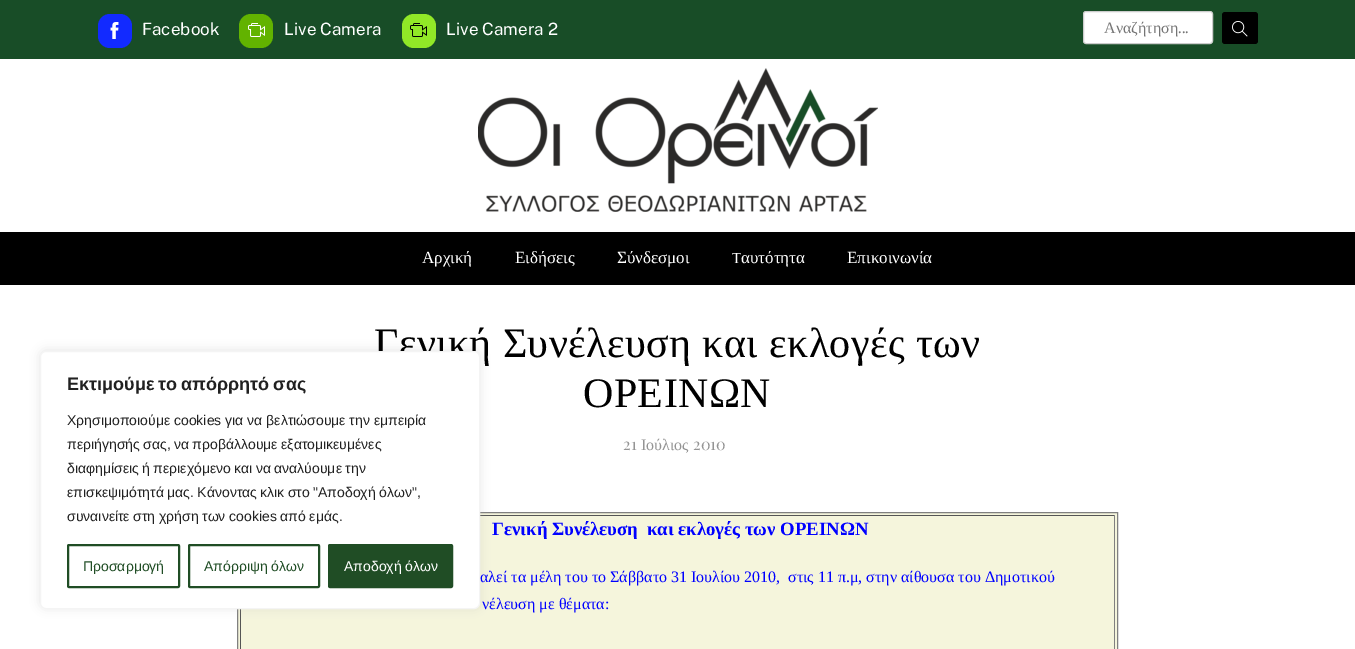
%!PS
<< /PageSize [1355 649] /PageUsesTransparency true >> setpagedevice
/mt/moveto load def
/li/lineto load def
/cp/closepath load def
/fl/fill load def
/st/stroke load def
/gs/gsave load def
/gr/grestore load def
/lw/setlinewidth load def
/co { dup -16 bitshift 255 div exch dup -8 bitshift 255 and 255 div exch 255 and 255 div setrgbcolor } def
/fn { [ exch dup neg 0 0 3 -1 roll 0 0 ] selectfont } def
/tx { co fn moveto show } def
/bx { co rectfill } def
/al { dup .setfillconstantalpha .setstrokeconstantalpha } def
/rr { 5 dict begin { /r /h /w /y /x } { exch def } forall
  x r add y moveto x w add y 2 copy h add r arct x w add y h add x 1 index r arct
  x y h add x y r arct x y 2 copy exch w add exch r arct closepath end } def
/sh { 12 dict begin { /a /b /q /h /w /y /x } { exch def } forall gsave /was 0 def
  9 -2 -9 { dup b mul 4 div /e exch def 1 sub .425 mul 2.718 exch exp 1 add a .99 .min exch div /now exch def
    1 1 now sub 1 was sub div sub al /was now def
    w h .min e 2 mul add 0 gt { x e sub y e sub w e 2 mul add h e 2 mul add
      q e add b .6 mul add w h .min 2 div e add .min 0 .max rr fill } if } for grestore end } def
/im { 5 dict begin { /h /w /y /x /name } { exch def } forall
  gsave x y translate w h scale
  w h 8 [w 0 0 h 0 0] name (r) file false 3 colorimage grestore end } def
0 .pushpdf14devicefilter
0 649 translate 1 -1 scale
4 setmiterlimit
0 0 1355 649 16#FFFFFF bx
0 0 1355 59 16#184D27 bx
16#122AFF co
98 14 34 34 12 rr fl
(media/1.raw) 110 22 9 17 im
16#62B300 co
239 14 34 34 12 rr fl
(media/2.raw) 248 23 17 14 im
16#91E827 co
402 14 34 34 12 rr fl
(media/3.raw) 410 23 17 14 im
16#FFFFFF co
1083.5 11.5 129 32 2.5 rr gs fl gr
16#CCCCCC co
st
16#000000 co
1222 12 36 32 3 rr fl
(media/4.raw) 1232 21 16 16 im
(media/5.raw) 478 68 400 144 im
0 232 1355 53 16#000000 bx
16#F5F5DC co
237.5 512.5 mt 1117.5 512.5 li 1117.5 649.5 li 237.5 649.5 li cp gs fl gr
16#808080 co
st
480 515 635 1 16#555555 bx
1114 515 1 134 16#808080 bx
240 609 1 40 16#555555 bx
16#ACABAB co
40 350 440 258 6 5 .3 sh
(Facebook) 142 35 /PublicSans-Regular 17 16#FFFFFF tx
(Live Camera) 284 35 /PublicSans-Regular 17 16#FFFFFF tx
(Live Camera 2) 446 35 /PublicSans-Regular 17 16#FFFFFF tx
(Αναζήτηση) 1104 33 /LiberationSerif-Regular 16 16#757575 tx
(...) 1178 33 /Judson-Regular 16 16#757575 tx
(Αρχική) 422 263 /LiberationSerif-Regular 17 16#FFFFFF tx
(Ειδήσεις) 515 263 /LiberationSerif-Regular 17 16#FFFFFF tx
(Σύνδεσμοι) 617 263 /LiberationSerif-Regular 17 16#FFFFFF tx
(T) 732 263 /Judson-Regular 17 16#FFFFFF tx
(αυτότητα) 741 263 /LiberationSerif-Regular 17 16#FFFFFF tx
(Επικοινωνία) 847 263 /LiberationSerif-Regular 17 16#FFFFFF tx
/LiberationSerif-Regular 42 fn
16#000000 co
374 357 mt .4 0 (Γενική Συνέλευση και εκλογές των) ashow
583 407 mt .4 0 (ΟΡΕΙΝΩΝ) ashow
(21) 623 450 /PlayfairDisplay-Regular 16 16#949494 tx
(Ιούλιος) 641 450 /LiberationSerif-Regular 16 16#949494 tx
(2010) 693 450 /PlayfairDisplay-Regular 16 16#949494 tx
(Γενική Συνέλευση) 492 535 /LiberationSerif-Bold 18.75 16#0000FF tx
(και εκλογές των ΟΡΕΙΝΩΝ) 647 535 /LiberationSerif-Bold 18.75 16#0000FF tx
(αλεί τα μέλη του το Σάββατο 31 Ιουλίου 2010,) 480 582 /LiberationSerif-Regular 16 16#0000FF tx
(στις 11 π.μ, στην αίθουσα του Δημοτικού) 788 582 /LiberationSerif-Regular 16 16#0000FF tx
(νέλευση με θέματα:) 482 609 /LiberationSerif-Regular 16 16#0000FF tx
16#FFFFFF co
40.5 351.5 439 257 5.5 rr gs fl gr
16#F4F4F4 co
st
/LiberationSans-Bold 18 fn
16#212121 co
67 390 mt -1 0 32 (Εκτιμούμε το απόρρητό σας) widthshow
(Χρησιμοποιούμε cookies για να βελτιώσουμε την εμπειρία) 67 425 /LiberationSans-Regular 14 16#212121 tx
67 449 mt -.5 0 32 (περιήγησής σας, να προβάλλουμε εξατομικευμένες) widthshow
67 473 mt -.5 0 32 (διαφημίσεις ή περιεχόμενο και να αναλύουμε την) widthshow
67 497 mt -.5 0 32 (επισκεψιμότητά μας. Κάνοντας κλικ στο "Αποδοχή όλων",) widthshow
67 521 mt -.25 0 32 (συναινείτε στη χρήση των cookies από εμάς.) widthshow
16#204D25 co
2 lw
68 545 111 42 1 rr st
(Προσαρμογή) 83 571 /LiberationSans-Regular 14 16#204D25 tx
189 545 130 42 1 rr st
204 571 mt -.5 0 32 (Απόρριψη όλων) widthshow
329 545 123 42 1 rr gs fl gr
st
16#FFFFFF co
344 571 mt -.5 0 32 (Αποδοχή όλων) widthshow
.poppdf14devicefilter showpage
